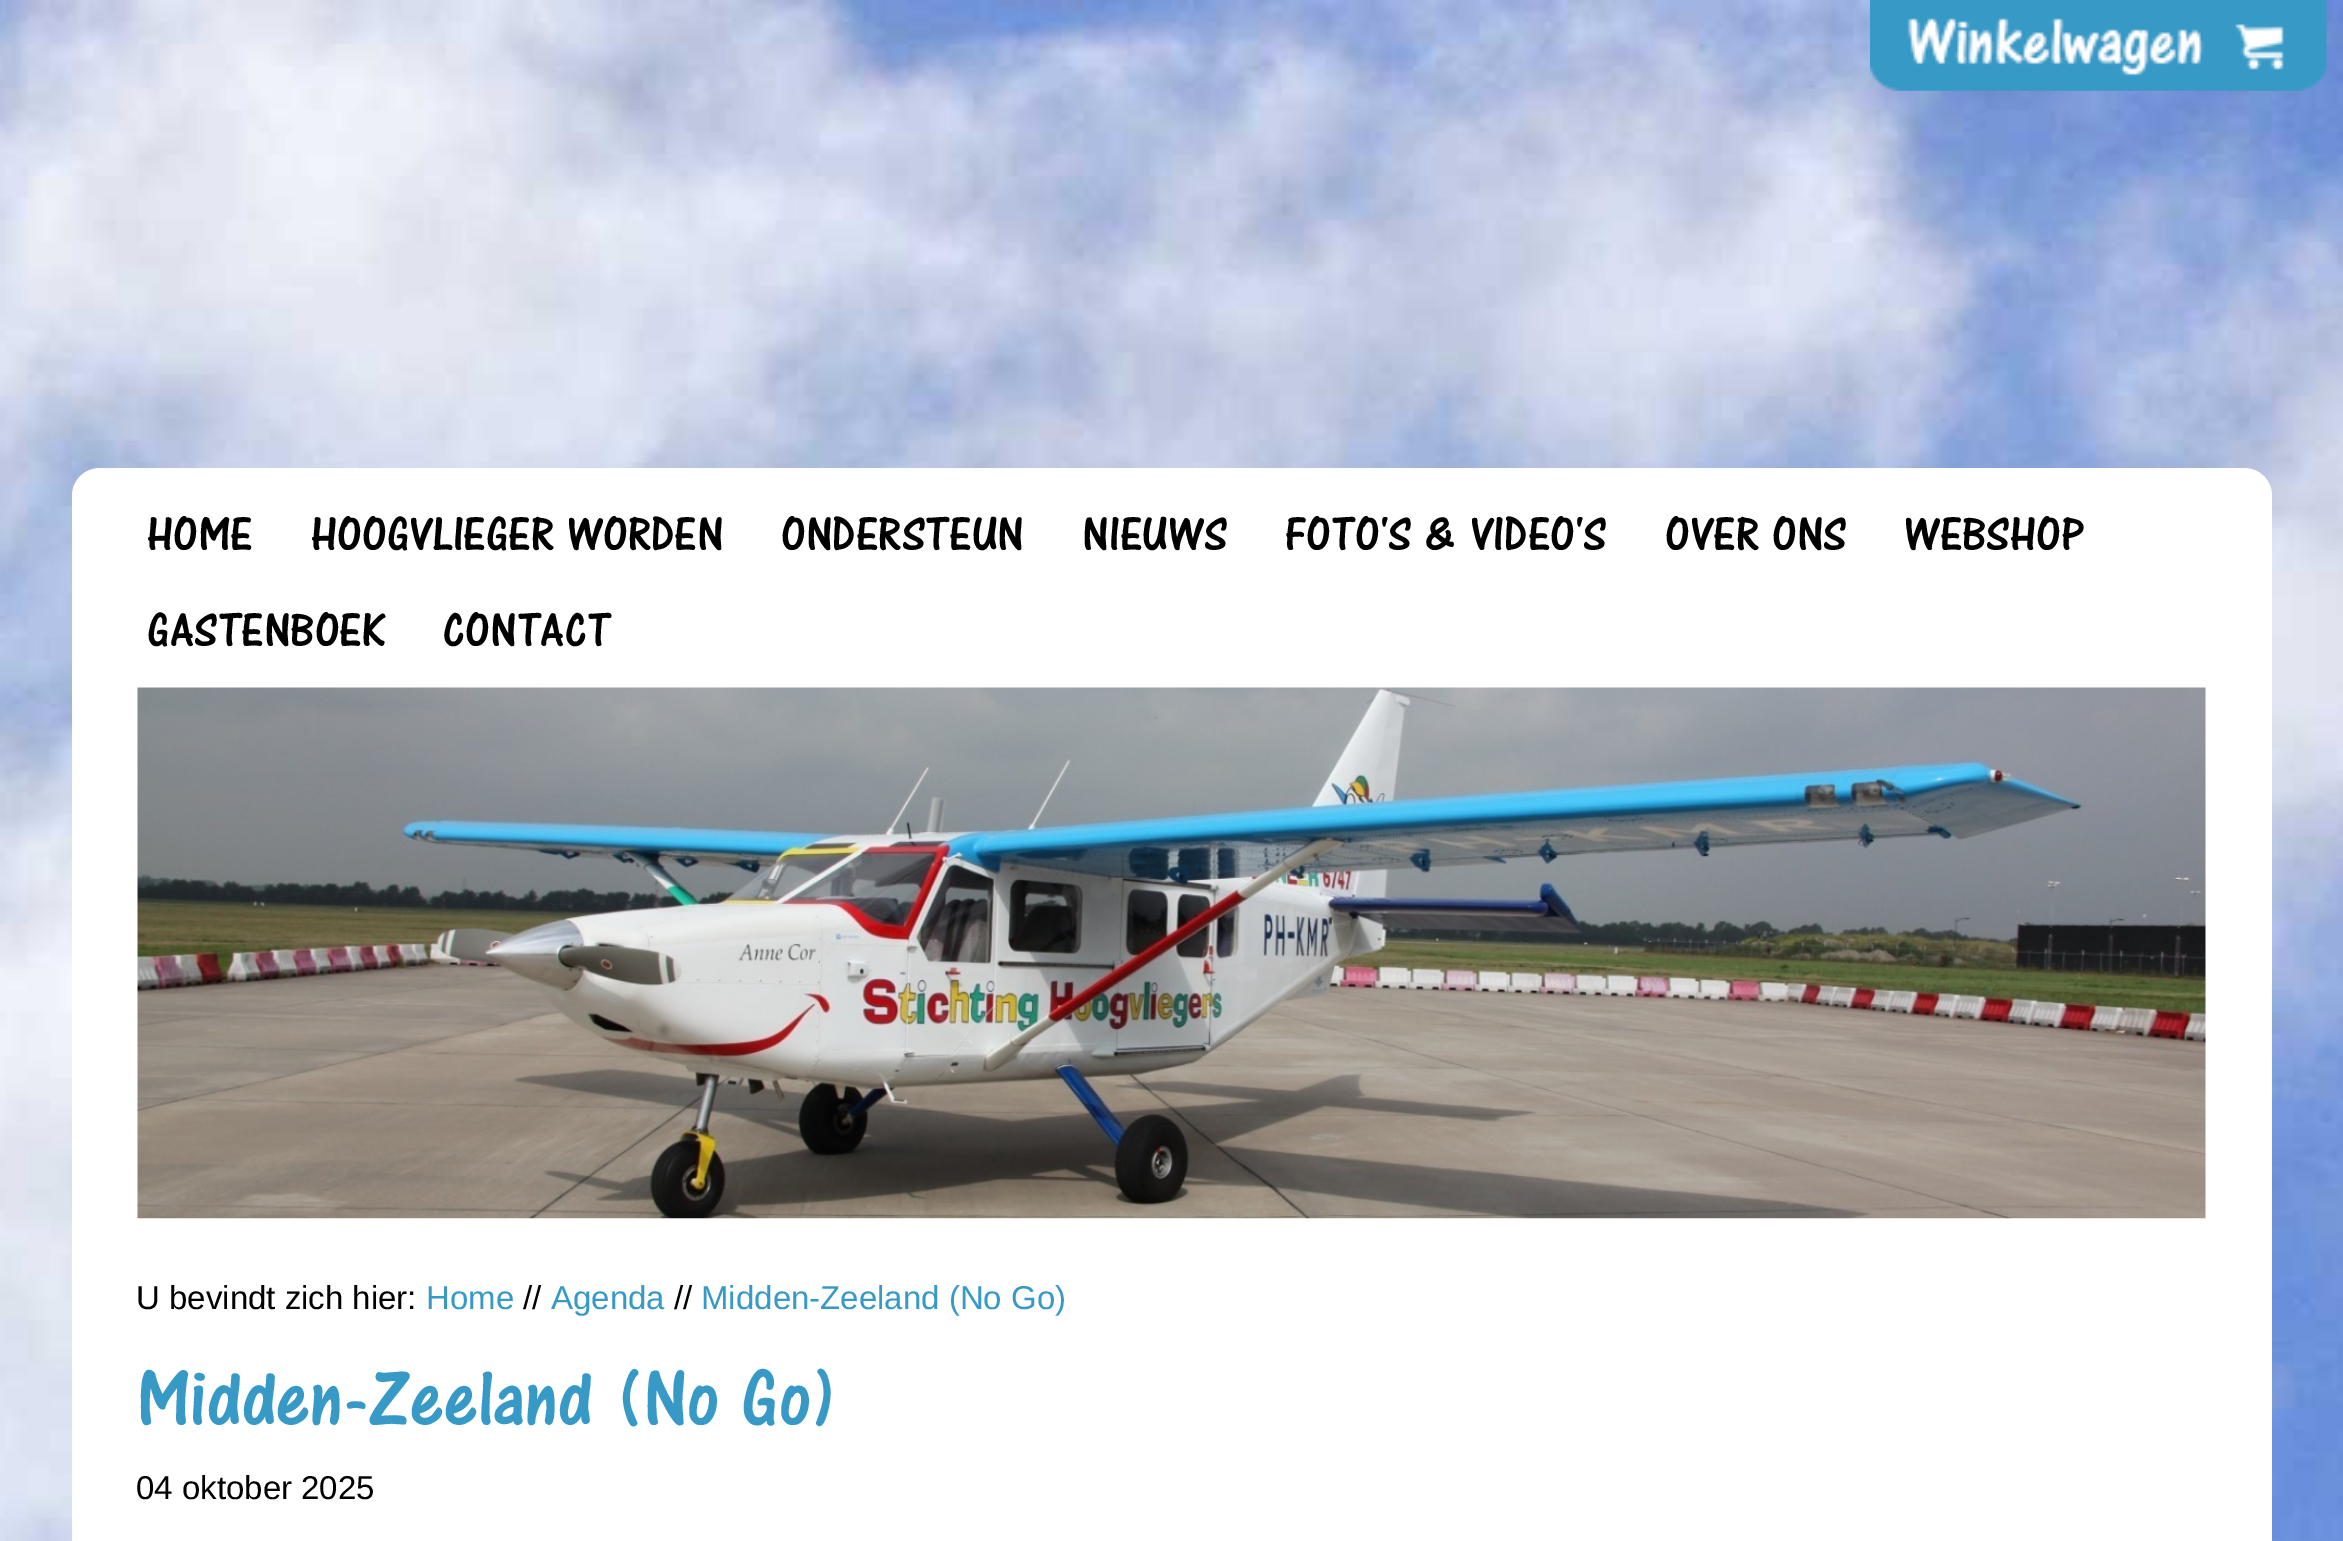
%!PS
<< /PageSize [2343 1541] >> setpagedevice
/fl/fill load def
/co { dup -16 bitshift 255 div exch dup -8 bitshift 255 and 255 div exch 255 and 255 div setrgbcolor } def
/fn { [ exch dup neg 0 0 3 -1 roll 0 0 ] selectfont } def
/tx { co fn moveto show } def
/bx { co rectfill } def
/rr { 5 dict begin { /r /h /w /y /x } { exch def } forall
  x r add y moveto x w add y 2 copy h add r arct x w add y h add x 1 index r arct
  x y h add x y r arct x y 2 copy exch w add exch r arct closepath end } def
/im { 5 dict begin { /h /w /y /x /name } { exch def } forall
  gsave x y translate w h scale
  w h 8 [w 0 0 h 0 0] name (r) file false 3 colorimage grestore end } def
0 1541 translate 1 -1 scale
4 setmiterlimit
0 0 2343 1541 16#FFFFFF bx
(media/1.raw) 0 0 2343 1541 im
(media/2.raw) 1870 0 457 91 im
72 468 2200 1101 28 rr fl
(media/3.raw) 137 687 2069 532 im
(HOME) 147 550 /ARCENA-Thin 49.5 16#000000 tx
(HOOGVLIEGER WORDEN) 311 550 /ARCENA-Thin 49.5 16#000000 tx
(ONDERSTEUN) 781 550 /ARCENA-Thin 49.5 16#000000 tx
(NIEUWS) 1082 550 /ARCENA-Thin 49.5 16#000000 tx
(FOTO'S & VIDEO'S) 1285 550 /ARCENA-Thin 49.5 16#000000 tx
(OVER ONS) 1665 550 /ARCENA-Thin 49.5 16#000000 tx
(WEBSHOP) 1904 550 /ARCENA-Thin 49.5 16#000000 tx
(GASTENBOEK) 147 646 /ARCENA-Thin 49.5 16#000000 tx
(CONTACT) 443 646 /ARCENA-Thin 49.5 16#000000 tx
(U bevindt zich hier:) 136 1309 /LiberationSans-Regular 33 16#000000 tx
(Home) 426 1309 /LiberationSans-Regular 33 16#3799C6 tx
(//) 523 1309 /LiberationSans-Regular 33 16#000000 tx
(Agenda) 551 1309 /LiberationSans-Regular 33 16#3799C6 tx
(//) 674 1309 /LiberationSans-Regular 33 16#000000 tx
(Midden-Zeeland \(No Go\)) 701 1309 /LiberationSans-Regular 33 16#3799C6 tx
(Midden-Zeeland \(No Go\)) 136 1425 /ARCENA-Thin 82.5 16#3799C6 tx
(04 oktober 2025) 136 1499 /LiberationSans-Regular 33 16#000000 tx
showpage
